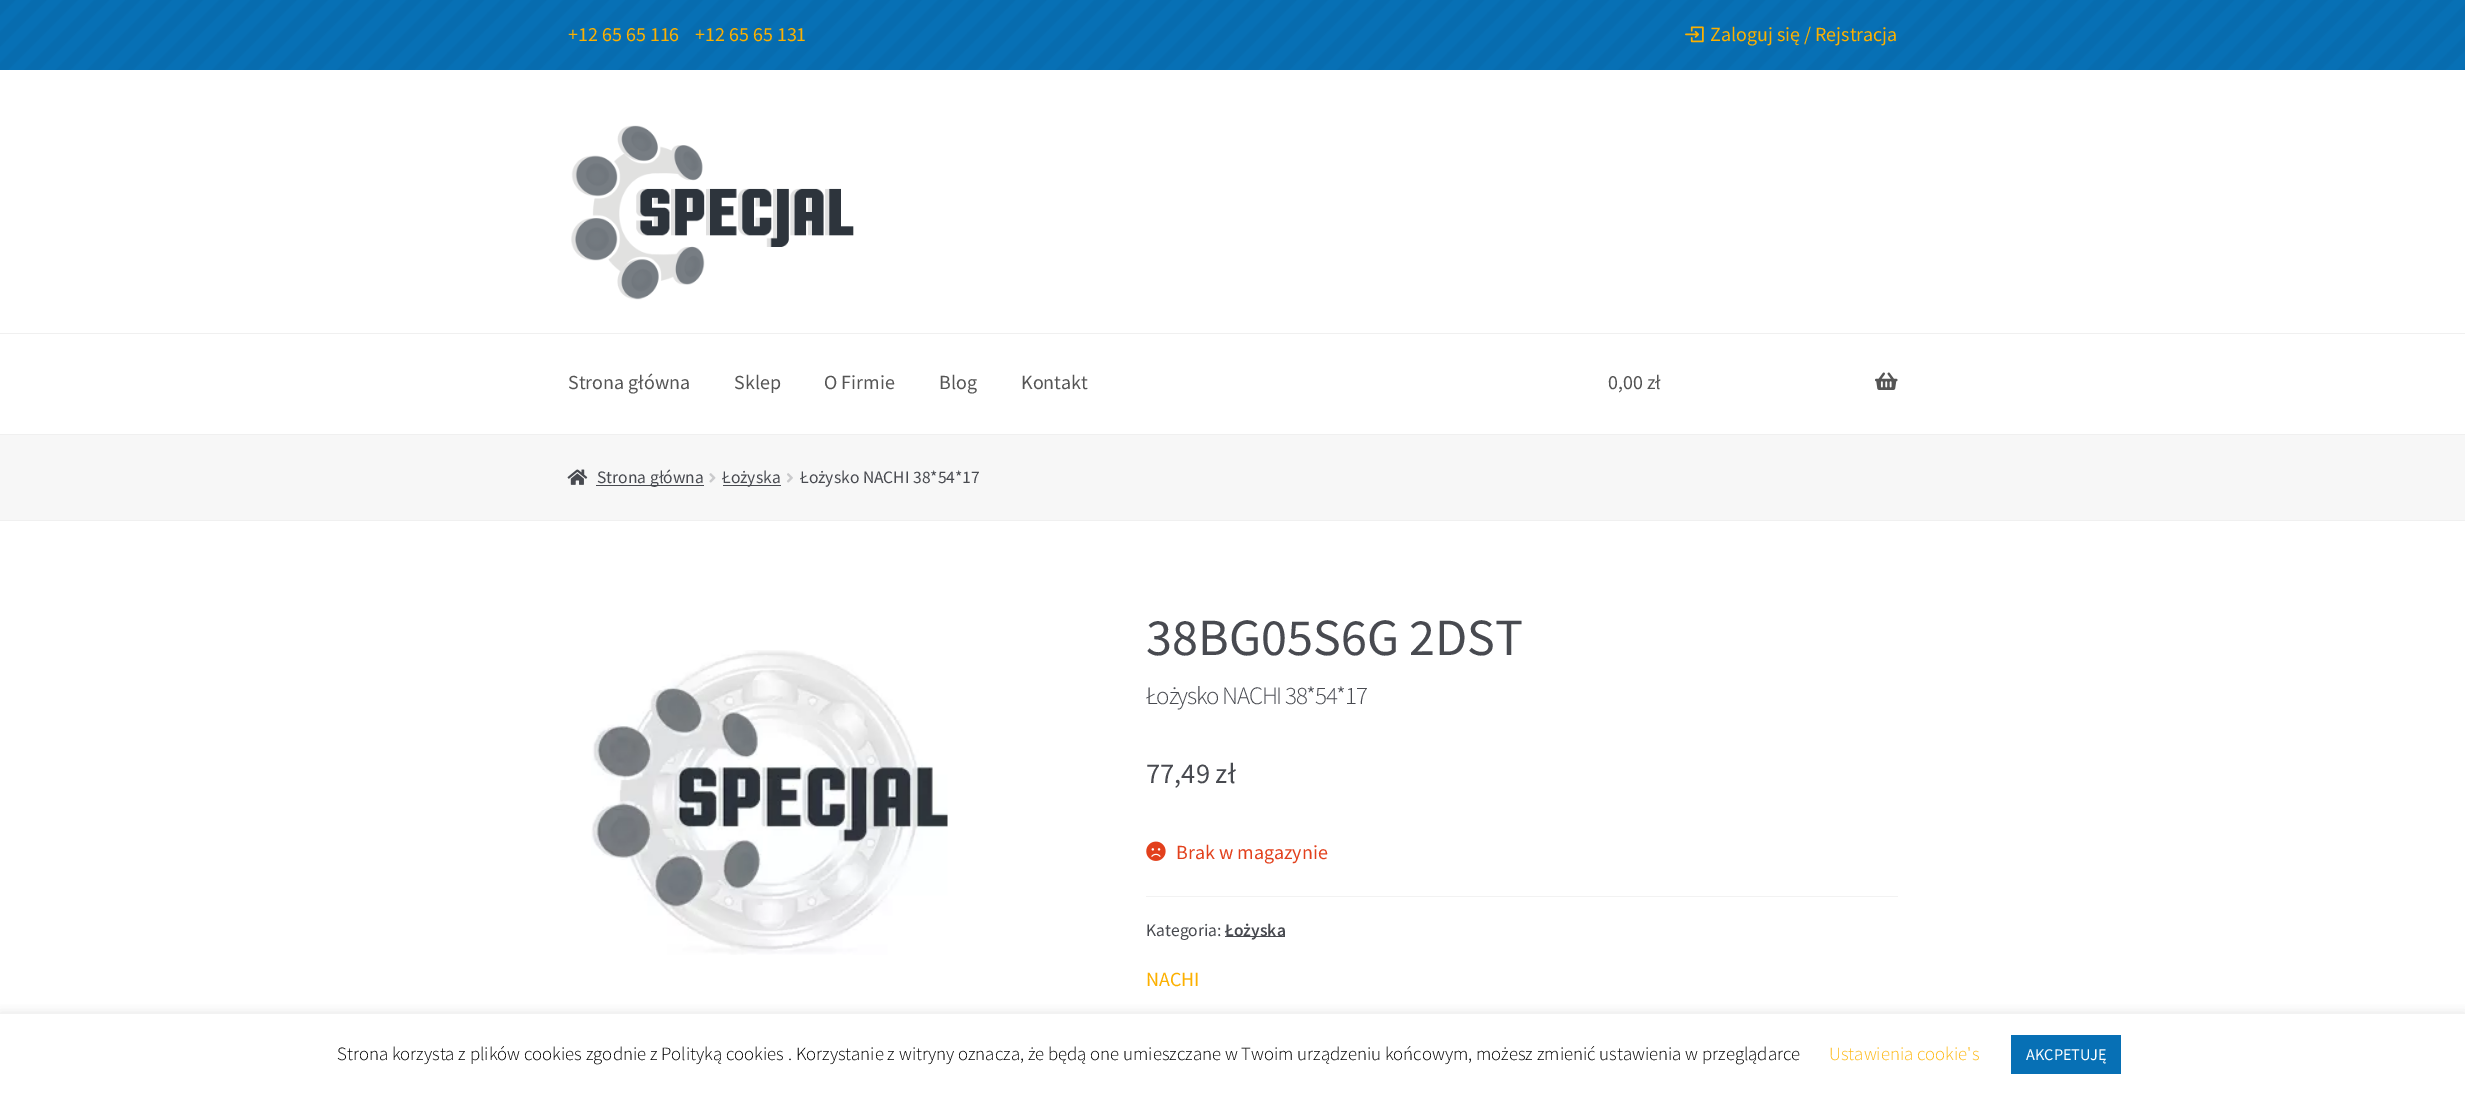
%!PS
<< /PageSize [2465 1094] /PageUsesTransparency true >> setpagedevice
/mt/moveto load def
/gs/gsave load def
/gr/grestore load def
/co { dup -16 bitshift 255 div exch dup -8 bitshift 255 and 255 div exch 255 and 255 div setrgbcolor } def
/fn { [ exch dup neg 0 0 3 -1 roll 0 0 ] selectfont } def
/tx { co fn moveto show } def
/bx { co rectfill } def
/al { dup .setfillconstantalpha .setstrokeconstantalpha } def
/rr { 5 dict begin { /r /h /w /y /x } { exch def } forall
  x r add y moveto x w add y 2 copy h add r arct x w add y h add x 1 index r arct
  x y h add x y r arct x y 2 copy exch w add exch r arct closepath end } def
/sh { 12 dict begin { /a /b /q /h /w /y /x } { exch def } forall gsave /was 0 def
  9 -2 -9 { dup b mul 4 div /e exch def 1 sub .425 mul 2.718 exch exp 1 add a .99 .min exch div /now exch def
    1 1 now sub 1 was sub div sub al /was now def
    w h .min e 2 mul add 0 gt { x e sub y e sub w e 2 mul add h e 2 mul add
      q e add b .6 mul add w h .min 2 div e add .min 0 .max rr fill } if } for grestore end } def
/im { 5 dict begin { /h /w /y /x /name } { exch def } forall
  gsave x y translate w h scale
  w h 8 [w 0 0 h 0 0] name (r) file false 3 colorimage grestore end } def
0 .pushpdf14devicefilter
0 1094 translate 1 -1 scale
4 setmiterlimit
0 0 2465 1094 16#FFFFFF bx
0 434 2465 1 16#F0F0F0 bx
0 0 2465 70 16#0770B5 bx
(media/1.raw) 0 0 2465 70 im
(media/2.raw) 1685 26 19 17 im
(media/3.raw) 571 125 283 175 im
0 333 2465 1 16#F0F0F0 bx
(media/4.raw) 1875 372 23 18 im
0 435 2465 85 16#F7F7F7 bx
0 520 2465 1 16#F0F0F0 bx
(media/5.raw) 567 469 21 16 im
596 485 108 1 16#484A50 bx
(media/6.raw) 709 473 7 10 im
723 485 58 1 16#484A50 bx
(media/7.raw) 787 473 6 10 im
(media/8.raw) 591 650 357 305 im
(media/9.raw) 1146 841 20 20 im
1146 896 752 1 16#F2F2F2 bx
1225 936 60 1 16#484A50 bx
gs
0 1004 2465 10 rectclip
16#ACABAB co
0 1013 2465 81 0 6 .3 sh
gr
2011 1035 110 39 16#0770B5 bx
(+12 65 65 116) 568 41 /SourceSansPro-Regular 20 16#FCB000 tx
(+12 65 65 131) 695 41 /SourceSansPro-Regular 20 16#FCB000 tx
(Zaloguj się / Rejstracja) 1710 41 /SourceSansPro-Regular 20 16#FCB000 tx
(Strona główna) 568 389 /SourceSansPro-Regular 20 16#555555 tx
(Sklep) 734 389 /SourceSansPro-Regular 20 16#555555 tx
(O Firmie) 824 389 /SourceSansPro-Regular 20 16#555555 tx
(Blog) 939 389 /SourceSansPro-Regular 20 16#555555 tx
(Kontakt) 1021 389 /SourceSansPro-Regular 20 16#555555 tx
(0,00 zł) 1608 389 /SourceSansPro-Regular 20 16#555555 tx
(Strona główna) 597 483 /SourceSansPro-Regular 17.5 16#484A50 tx
(Łożyska) 722 483 /SourceSansPro-Regular 17.5 16#484A50 tx
(Łożysko NACHI 38*54*17) 800 483 /SourceSansPro-Regular 17.5 16#484A50 tx
(38BG05S6G 2DST) 1146 655 /SourceSansPro-Regular 52.25 16#484A50 tx
/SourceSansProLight-Light 25 fn
1146 704 mt -1.25 0 (Łożysko NACHI 38*54*17) ashow
(77,49 zł) 1146 783 /SourceSansPro-Regular 28.5 16#484A50 tx
(Brak w magazynie) 1176 859 /SourceSansPro-Regular 20 16#E2401C tx
(Kategoria:) 1146 936 /SourceSansPro-Regular 17.5 16#484A50 tx
(Łożyska) 1225 936 /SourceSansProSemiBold-SemiBold 17.5 16#484A50 tx
(NACHI) 1146 986 /SourceSansPro-Regular 20 16#FCB000 tx
(Strona korzysta z plików cookies zgodnie z Polityką cookies . Korzystanie z witryny oznacza, że będą one umieszczane w Twoim urządzeniu końcowym, możesz zmienić ustawienia w przeglądarce) 337 1060 /SourceSansProLight-Light 18.75 16#000000 tx
(Ustawienia cookie's) 1829 1060 /SourceSansProLight-Light 18.75 16#FDB813 tx
(AKCPETUJĘ) 2026 1060 /SourceSansPro-Regular 16.25 16#FFFFFF tx
.poppdf14devicefilter showpage
